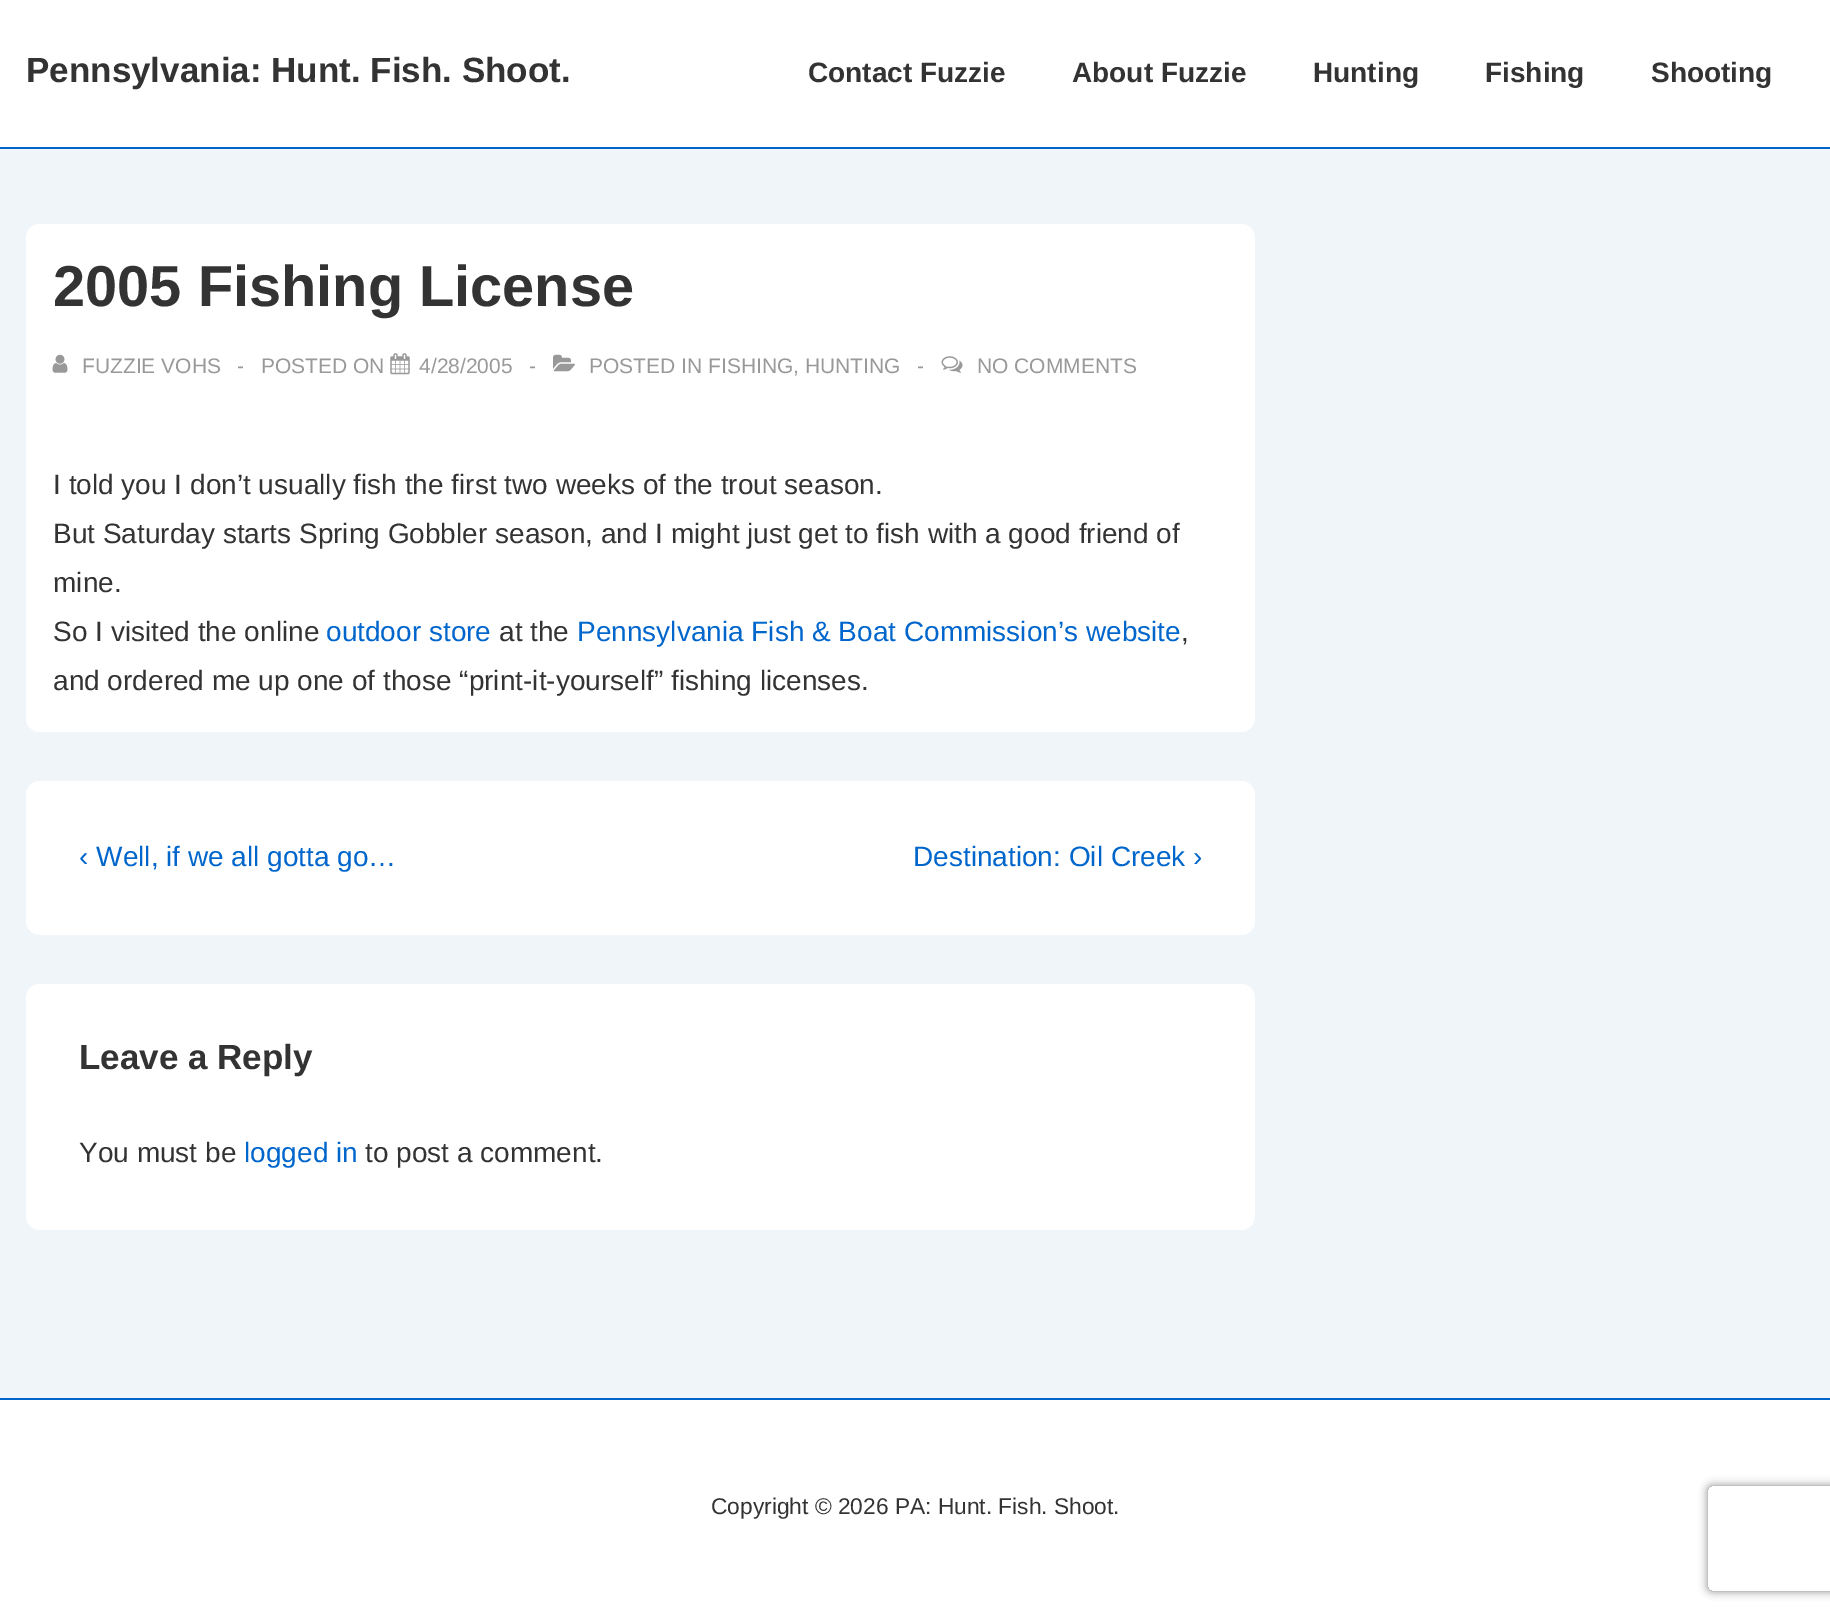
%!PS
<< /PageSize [1830 1615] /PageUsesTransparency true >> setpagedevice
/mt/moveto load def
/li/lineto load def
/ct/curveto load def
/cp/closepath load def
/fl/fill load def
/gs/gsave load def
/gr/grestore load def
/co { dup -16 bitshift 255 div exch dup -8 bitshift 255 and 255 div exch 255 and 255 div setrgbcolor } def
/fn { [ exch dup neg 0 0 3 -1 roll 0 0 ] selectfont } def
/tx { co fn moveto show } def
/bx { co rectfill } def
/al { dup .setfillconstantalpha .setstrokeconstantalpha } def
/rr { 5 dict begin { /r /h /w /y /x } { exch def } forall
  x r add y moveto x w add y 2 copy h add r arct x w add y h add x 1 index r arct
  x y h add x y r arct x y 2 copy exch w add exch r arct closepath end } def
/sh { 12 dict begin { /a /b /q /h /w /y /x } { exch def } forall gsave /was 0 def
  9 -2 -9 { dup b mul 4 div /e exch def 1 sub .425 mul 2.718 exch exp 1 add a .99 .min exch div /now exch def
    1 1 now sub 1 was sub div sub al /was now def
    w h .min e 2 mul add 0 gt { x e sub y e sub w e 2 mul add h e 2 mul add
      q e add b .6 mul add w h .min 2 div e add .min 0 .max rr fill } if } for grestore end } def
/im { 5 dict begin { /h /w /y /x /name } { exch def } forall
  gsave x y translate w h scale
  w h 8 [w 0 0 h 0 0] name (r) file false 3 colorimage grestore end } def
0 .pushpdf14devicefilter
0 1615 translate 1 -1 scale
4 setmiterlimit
0 0 1830 1615 16#F0F5FA bx
0 0 1830 147 16#FFFFFF bx
0 147 1830 2 16#0066CC bx
16#FFFFFF co
26 224 1229 508 14 rr fl
(media/1.raw) 52 354 16 19 im
(media/2.raw) 390 353 20 22 im
(media/3.raw) 553 354 22 18 im
(media/4.raw) 941 356 22 17 im
26 781 1229 154 14 rr fl
26 984 1229 246 14 rr fl
0 1400 1830 215 16#FFFFFF bx
0 1398 1830 2 16#0066CC bx
gs
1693 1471 mt 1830 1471 li 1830 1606 li 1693 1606 li cp 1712 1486 mt 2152 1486 li 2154 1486 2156 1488 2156 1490 ct 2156 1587 li 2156 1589 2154 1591 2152 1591 ct 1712 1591 li 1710 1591 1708 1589 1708 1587 ct 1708 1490 li 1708 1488 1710 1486 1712 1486 ct cp eoclip newpath
16#808080 co
1708 1486 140 105 4 4.5 1 sh
gr
(Pennsylvania: Hunt. Fish. Shoot.) 26 82 /LiberationSans-Bold 35 16#333333 tx
(Contact Fuzzie) 808 82 /LiberationSans-Bold 28 16#333333 tx
(About Fuzzie) 1072 82 /LiberationSans-Bold 28 16#333333 tx
(Hunting) 1313 82 /LiberationSans-Bold 28 16#333333 tx
(Fishing) 1485 82 /LiberationSans-Bold 28 16#333333 tx
(Shooting) 1651 82 /LiberationSans-Bold 28 16#333333 tx
(2005 Fishing License) 53 306 /LiberationSans-Bold 57.75 16#333333 tx
(FUZZIE VOHS) 82 373 /LiberationSans-Regular 21 16#999999 tx
(-) 237 373 /LiberationSans-Regular 21 16#999999 tx
(POSTED ON) 261 373 /LiberationSans-Regular 21 16#999999 tx
(4/28/2005) 419 373 /LiberationSans-Regular 21 16#999999 tx
(-) 529 373 /LiberationSans-Regular 21 16#999999 tx
(POSTED IN FISHING, HUNTING) 589 373 /LiberationSans-Regular 21 16#999999 tx
(-) 917 373 /LiberationSans-Regular 21 16#999999 tx
(NO COMMENTS) 977 373 /LiberationSans-Regular 21 16#999999 tx
(I told you I don’t usually fish the first two weeks of the trout season.) 53 494 /LiberationSans-Regular 28 16#333333 tx
(But Saturday starts Spring Gobbler season, and I might just get to fish with a good friend of) 53 543 /LiberationSans-Regular 28 16#333333 tx
(mine.) 53 592 /LiberationSans-Regular 28 16#333333 tx
(So I visited the online) 53 641 /LiberationSans-Regular 28 16#333333 tx
(outdoor store) 326 641 /LiberationSans-Regular 28 16#0066CC tx
(at the) 499 641 /LiberationSans-Regular 28 16#333333 tx
(Pennsylvania Fish & Boat Commission’s website) 577 641 /LiberationSans-Regular 28 16#0066CC tx
(,) 1181 641 /LiberationSans-Regular 28 16#333333 tx
(and ordered me up one of those “print-it-yourself” fishing licenses.) 53 690 /LiberationSans-Regular 28 16#333333 tx
(‹ Well, if we all gotta go…) 79 866 /LiberationSans-Regular 28 16#0066CC tx
(Destination: Oil Creek ›) 913 866 /LiberationSans-Regular 28 16#0066CC tx
(Leave a Reply) 79 1069 /LiberationSans-Bold 35 16#333333 tx
(You must be) 79 1162 /LiberationSans-Regular 28 16#333333 tx
(logged in) 244 1162 /LiberationSans-Regular 28 16#0066CC tx
(to post a comment.) 365 1162 /LiberationSans-Regular 28 16#333333 tx
(Copyright © 2026 PA: Hunt. Fish. Shoot.) 711 1514 /LiberationSans-Regular 22.75 16#333333 tx
.poppdf14devicefilter showpage
